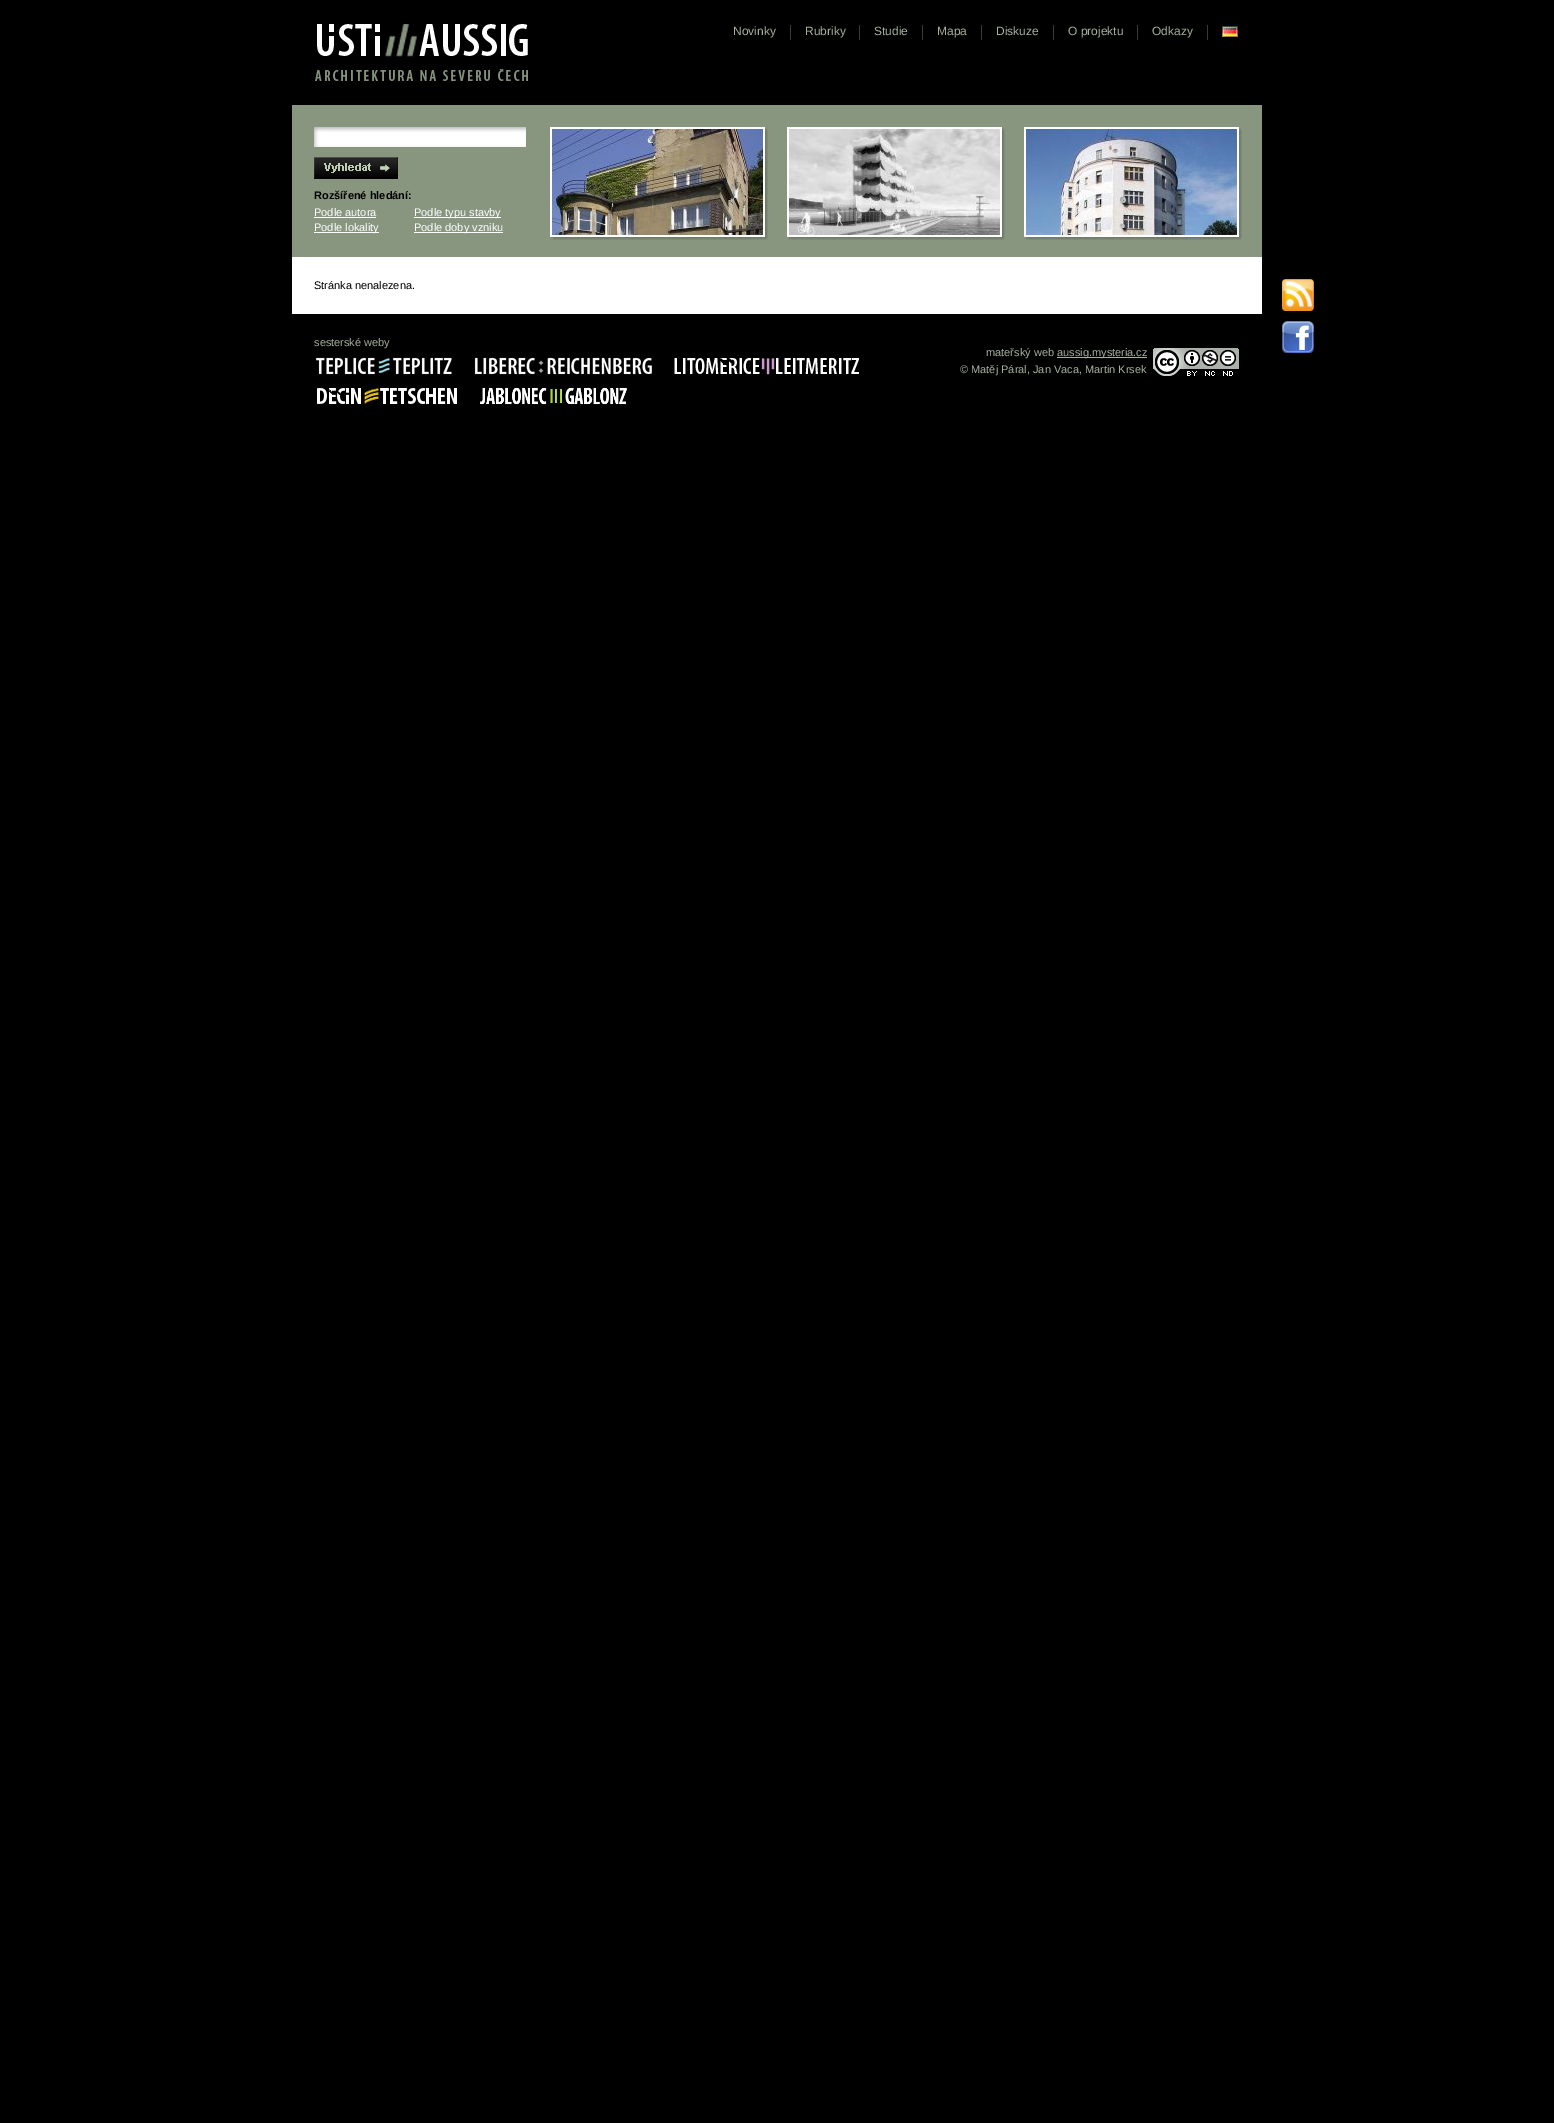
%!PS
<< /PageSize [1554 2123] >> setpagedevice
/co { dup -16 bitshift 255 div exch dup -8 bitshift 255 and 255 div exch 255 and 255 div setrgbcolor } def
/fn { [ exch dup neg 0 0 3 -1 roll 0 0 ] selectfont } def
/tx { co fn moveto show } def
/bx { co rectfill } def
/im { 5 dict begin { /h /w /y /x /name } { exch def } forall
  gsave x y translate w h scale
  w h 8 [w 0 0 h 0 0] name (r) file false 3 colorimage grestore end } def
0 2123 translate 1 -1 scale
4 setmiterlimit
0 0 1554 2123 16#000000 bx
(media/1.raw) 315 24 213 57 im
790 25 1 15 16#363C33 bx
859 25 1 15 16#363C33 bx
922 25 1 15 16#363C33 bx
981 25 1 15 16#363C33 bx
1053 25 1 15 16#363C33 bx
1137 25 1 15 16#363C33 bx
1207 25 1 15 16#363C33 bx
(media/2.raw) 1222 26 16 11 im
292 105 970 152 16#88957F bx
(media/3.raw) 314 127 212 20 im
(media/4.raw) 314 157 84 22 im
314 217 62 1 16#FFFFFF bx
414 217 87 1 16#FFFFFF bx
314 232 65 1 16#FFFFFF bx
414 232 89 1 16#FFFFFF bx
(media/5.raw) 550 127 218 113 im
(media/6.raw) 552 129 211 106 im
(media/5.raw) 787 127 218 113 im
(media/7.raw) 789 129 211 106 im
(media/5.raw) 1024 127 218 113 im
(media/8.raw) 1026 129 211 106 im
(media/9.raw) 1282 279 32 32 im
(media/10.raw) 1282 321 32 32 im
292 257 970 57 16#FFFFFF bx
(media/11.raw) 315 357 137 18 im
(media/12.raw) 474 357 179 18 im
(media/13.raw) 674 358 185 17 im
(media/14.raw) 317 388 140 16 im
(media/15.raw) 480 387 147 18 im
1057 357 90 1 16#A6B19F bx
(media/16.raw) 1152 347 87 31 im
(Novinky) 733 35 /LiberationSans-Regular 12 16#A6B19F tx
(Rubriky) 805 35 /LiberationSans-Regular 12 16#A6B19F tx
(Studie) 874 35 /LiberationSans-Regular 12 16#A6B19F tx
(Mapa) 937 35 /LiberationSans-Regular 12 16#A6B19F tx
(Diskuze) 996 35 /LiberationSans-Regular 12 16#A6B19F tx
(O projektu) 1068 35 /LiberationSans-Regular 12 16#A6B19F tx
(Odkazy) 1152 35 /LiberationSans-Regular 12 16#A6B19F tx
(Rozšířené hledání:) 314 199 /LiberationSans-Bold 11 16#000000 tx
(Podle autora) 314 216 /LiberationSans-Regular 11 16#FFFFFF tx
(Podle typu stavby) 414 216 /LiberationSans-Regular 11 16#FFFFFF tx
(Podle lokality) 314 231 /LiberationSans-Regular 11 16#FFFFFF tx
(Podle doby vzniku) 414 231 /LiberationSans-Regular 11 16#FFFFFF tx
(Stránka nenalezena.) 314 289 /LiberationSans-Regular 11 16#000000 tx
(sesterské weby) 314 346 /LiberationSans-Regular 11 16#A6B19F tx
(mateřský web) 986 356 /LiberationSans-Regular 11 16#A6B19F tx
(aussig.mysteria.cz) 1057 356 /LiberationSans-Regular 11 16#A6B19F tx
(© Matěj Páral, Jan Vaca, Martin Krsek) 960 373 /LiberationSans-Regular 11 16#A6B19F tx
showpage
